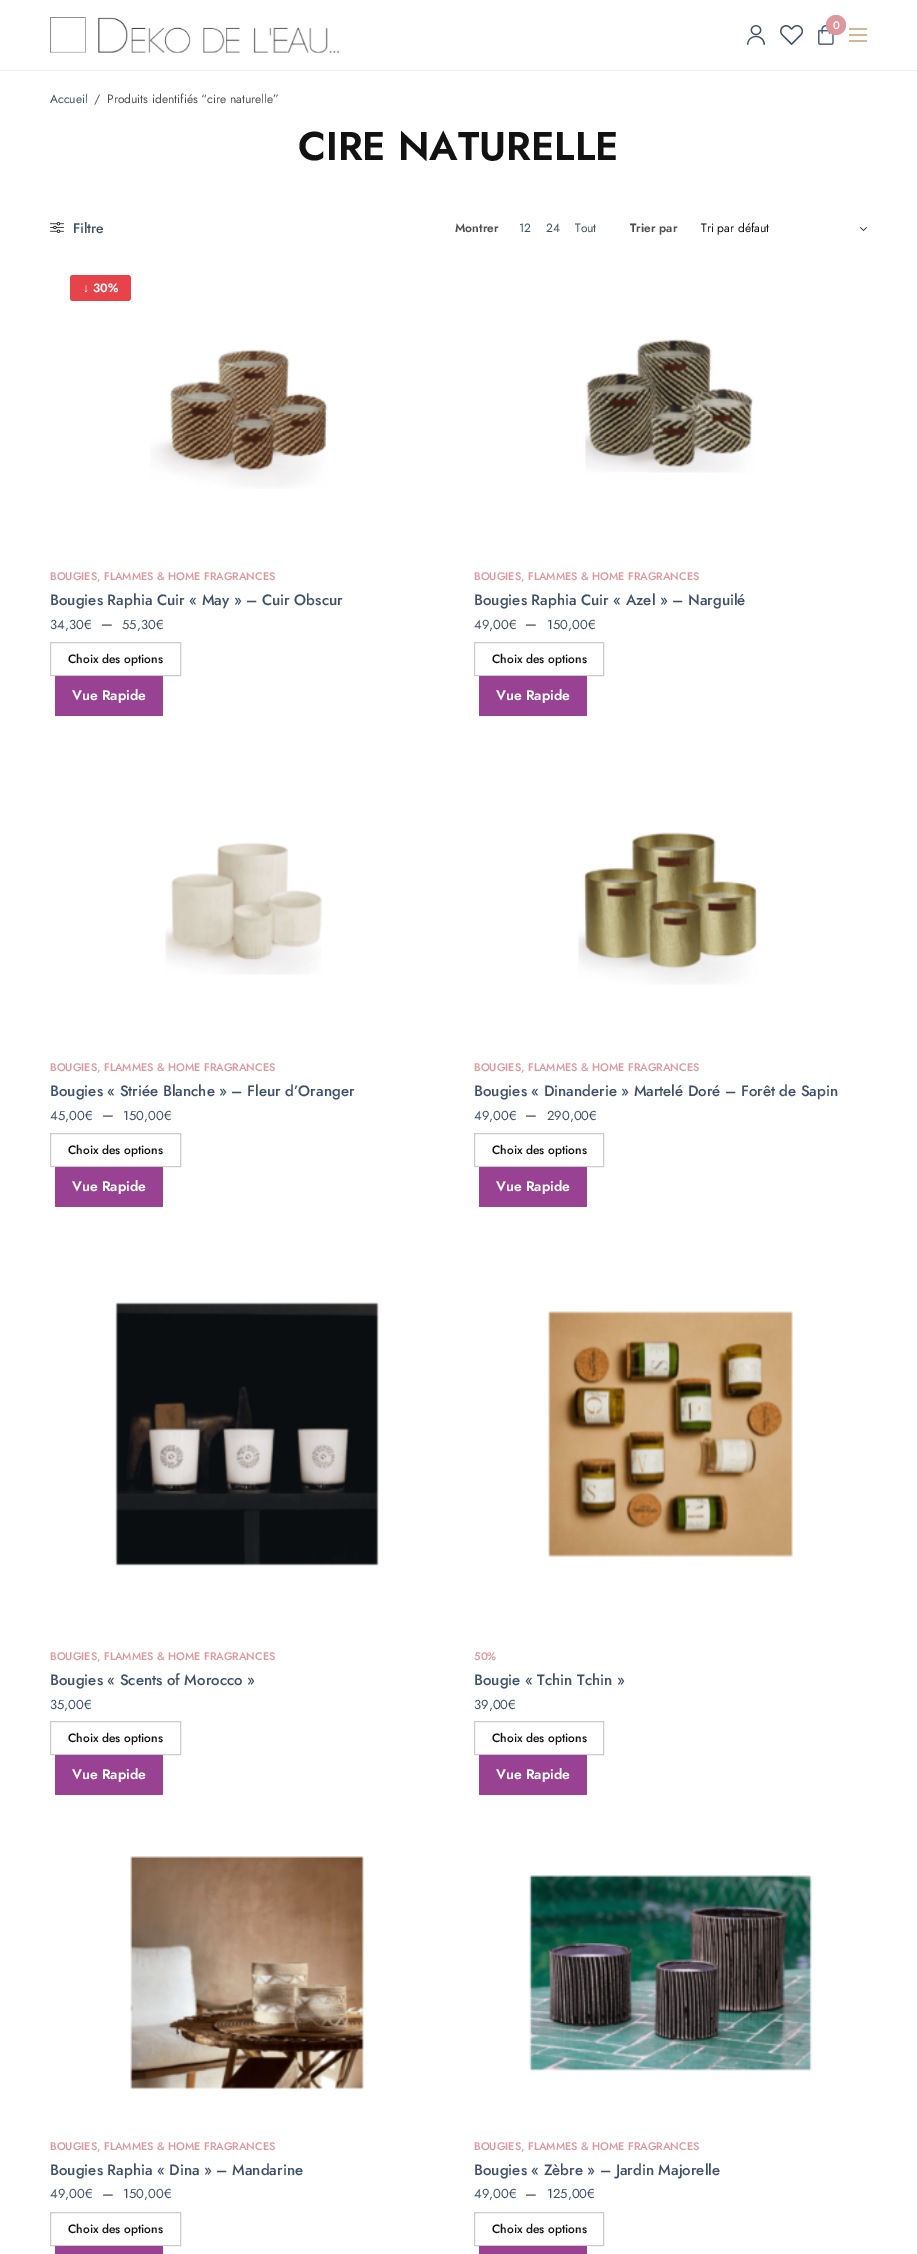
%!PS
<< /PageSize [917 2254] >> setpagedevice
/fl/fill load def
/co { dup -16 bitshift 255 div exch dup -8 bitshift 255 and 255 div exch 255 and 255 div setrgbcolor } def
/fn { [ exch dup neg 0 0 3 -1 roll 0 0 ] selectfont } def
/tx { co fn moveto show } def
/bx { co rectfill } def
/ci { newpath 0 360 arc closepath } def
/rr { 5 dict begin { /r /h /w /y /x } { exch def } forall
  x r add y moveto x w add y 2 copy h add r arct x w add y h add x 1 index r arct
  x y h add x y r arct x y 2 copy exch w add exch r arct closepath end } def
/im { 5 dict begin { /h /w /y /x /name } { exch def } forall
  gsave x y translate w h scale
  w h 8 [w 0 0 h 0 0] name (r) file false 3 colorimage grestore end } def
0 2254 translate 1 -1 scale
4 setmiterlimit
0 0 917 2254 16#FFFFFF bx
0 70 917 1 16#EDEDED bx
(media/1.raw) 50 17 289 36 im
(media/2.raw) 747 25 18 20 im
(media/3.raw) 780 25 23 20 im
(media/4.raw) 818 25 16 20 im
16#DD979D co
836 25 10 ci fl
849 28 18 2 16#D0B896 bx
849 34 18 2 16#D0B896 bx
849 40 18 2 16#D0B896 bx
(media/5.raw) 50 222 14 11 im
(media/6.raw) 860 227 7 4 im
16#E6434A co
70 275 61 26 3 rr fl
(media/7.raw) 150 349 178 140 im
16#CCCCCC co
50.5 642.5 130 33 rectstroke
16#994294 co
55 676 108 40 1 rr fl
(media/8.raw) 585 339 169 134 im
16#CCCCCC co
474.5 642.5 129 33 rectstroke
16#994294 co
479 676 108 40 1 rr fl
(media/9.raw) 165 842 157 133 im
16#CCCCCC co
50.5 1133.5 130 33 rectstroke
16#994294 co
55 1167 108 40 1 rr fl
(media/10.raw) 578 832 180 153 im
16#CCCCCC co
474.5 1133.5 129 33 rectstroke
16#994294 co
479 1167 108 40 1 rr fl
(media/11.raw) 115 1302 264 264 im
16#CCCCCC co
50.5 1721.5 130 33 rectstroke
16#994294 co
55 1755 108 40 1 rr fl
(media/12.raw) 548 1311 245 246 im
16#CCCCCC co
474.5 1721.5 129 33 rectstroke
16#994294 co
479 1755 108 40 1 rr fl
(media/13.raw) 130 1856 234 234 im
16#CCCCCC co
50.5 2212.5 130 33 rectstroke
16#994294 co
55 2246 108 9 1 rr fl
(media/14.raw) 529 1875 283 196 im
16#CCCCCC co
474.5 2212.5 129 33 rectstroke
16#994294 co
479 2246 108 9 1 rr fl
(0) 833 29 /Jost-Medium 11 16#FFFFFF tx
(Accueil) 50 103 /Jost-Regular 12 16#3E516A tx
(/) 94 103 /Jost-Regular 12 16#4F4F4F tx
(Produits identifiés “cire naturelle”) 107 103 /Jost-Regular 12 16#4F4F4F tx
(CIRE NATURELLE) 298 160 /Jost-SemiBold 40 16#121212 tx
(Filtre) 73 233 /Jost-Medium 14 16#3E516A tx
(Montrer) 455 232 /Jost-SemiBold 12 16#4F4F4F tx
(12) 519 232 /Jost-Regular 12 16#3E516A tx
(24) 546 232 /Jost-Regular 12 16#3E516A tx
(Tout) 575 232 /Jost-Regular 12 16#3E516A tx
(Trier par) 630 232 /Jost-SemiBold 12 16#4F4F4F tx
(Tri par défaut) 701 232 /Jost-Regular 12 16#121212 tx
(↓) 83 292 /LiberationSerif-Bold 12 16#FFFFFF tx
(30%) 93 292 /Jost-SemiBold 12 16#FFFFFF tx
(BOUGIES, FLAMMES & HOME FRAGRANCES) 50 580 /Jost-Medium 11 16#DD979D tx
(Bougies Raphia Cuir « May » – Cuir Obscur) 50 605 /Jost-Medium 15 16#3E516A tx
(34,30€) 50 629 /Jost-Regular 13 16#3E516A tx
(–) 101 629 /Jost-Regular 16 16#4F4F4F tx
(55,30€) 122 629 /Jost-Regular 13 16#3E516A tx
(Choix des options) 68 663 /Jost-Medium 12 16#121212 tx
(Vue Rapide) 72 700 /Jost-SemiBold 14 16#FFFFFF tx
(BOUGIES, FLAMMES & HOME FRAGRANCES) 474 580 /Jost-Medium 11 16#DD979D tx
(Bougies Raphia Cuir « Azel » – Narguilé) 474 605 /Jost-Medium 15 16#3E516A tx
(49,00€) 474 629 /Jost-Regular 13 16#3E516A tx
(–) 525 629 /Jost-Regular 16 16#4F4F4F tx
(150,00€) 547 629 /Jost-Regular 13 16#3E516A tx
(Choix des options) 492 663 /Jost-Medium 12 16#121212 tx
(Vue Rapide) 496 700 /Jost-SemiBold 14 16#FFFFFF tx
(BOUGIES, FLAMMES & HOME FRAGRANCES) 50 1071 /Jost-Medium 11 16#DD979D tx
(Bougies « Striée Blanche » – Fleur d’Oranger) 50 1096 /Jost-Medium 15 16#3E516A tx
(45,00€) 50 1120 /Jost-Regular 13 16#3E516A tx
(–) 102 1120 /Jost-Regular 16 16#4F4F4F tx
(150,00€) 123 1120 /Jost-Regular 13 16#3E516A tx
(Choix des options) 68 1154 /Jost-Medium 12 16#121212 tx
(Vue Rapide) 72 1191 /Jost-SemiBold 14 16#FFFFFF tx
(BOUGIES, FLAMMES & HOME FRAGRANCES) 474 1071 /Jost-Medium 11 16#DD979D tx
(Bougies « Dinanderie » Martelé Doré – Forêt de Sapin) 474 1096 /Jost-Medium 15 16#3E516A tx
(49,00€) 474 1120 /Jost-Regular 13 16#3E516A tx
(–) 525 1120 /Jost-Regular 16 16#4F4F4F tx
(290,00€) 547 1120 /Jost-Regular 13 16#3E516A tx
(Choix des options) 492 1154 /Jost-Medium 12 16#121212 tx
(Vue Rapide) 496 1191 /Jost-SemiBold 14 16#FFFFFF tx
(BOUGIES, FLAMMES & HOME FRAGRANCES) 50 1660 /Jost-Medium 11 16#DD979D tx
(Bougies « Scents of Morocco ») 50 1685 /Jost-Medium 15 16#3E516A tx
(35,00€) 50 1709 /Jost-Regular 13 16#3E516A tx
(Choix des options) 68 1742 /Jost-Medium 12 16#121212 tx
(Vue Rapide) 72 1779 /Jost-SemiBold 14 16#FFFFFF tx
(50%) 474 1660 /Jost-Medium 11 16#DD979D tx
(Bougie « Tchin Tchin ») 474 1685 /Jost-Medium 15 16#3E516A tx
(39,00€) 474 1709 /Jost-Regular 13 16#3E516A tx
(Choix des options) 492 1742 /Jost-Medium 12 16#121212 tx
(Vue Rapide) 496 1779 /Jost-SemiBold 14 16#FFFFFF tx
(BOUGIES, FLAMMES & HOME FRAGRANCES) 50 2150 /Jost-Medium 11 16#DD979D tx
(Bougies Raphia « Dina » – Mandarine) 50 2175 /Jost-Medium 15 16#3E516A tx
(49,00€) 50 2198 /Jost-Regular 13 16#3E516A tx
(–) 102 2199 /Jost-Regular 16 16#4F4F4F tx
(150,00€) 123 2198 /Jost-Regular 13 16#3E516A tx
(Choix des options) 68 2233 /Jost-Medium 12 16#121212 tx
(BOUGIES, FLAMMES & HOME FRAGRANCES) 474 2150 /Jost-Medium 11 16#DD979D tx
(Bougies « Zèbre » – Jardin Majorelle) 474 2175 /Jost-Medium 15 16#3E516A tx
(49,00€) 474 2198 /Jost-Regular 13 16#3E516A tx
(–) 525 2199 /Jost-Regular 16 16#4F4F4F tx
(125,00€) 547 2198 /Jost-Regular 13 16#3E516A tx
(Choix des options) 492 2233 /Jost-Medium 12 16#121212 tx
showpage
